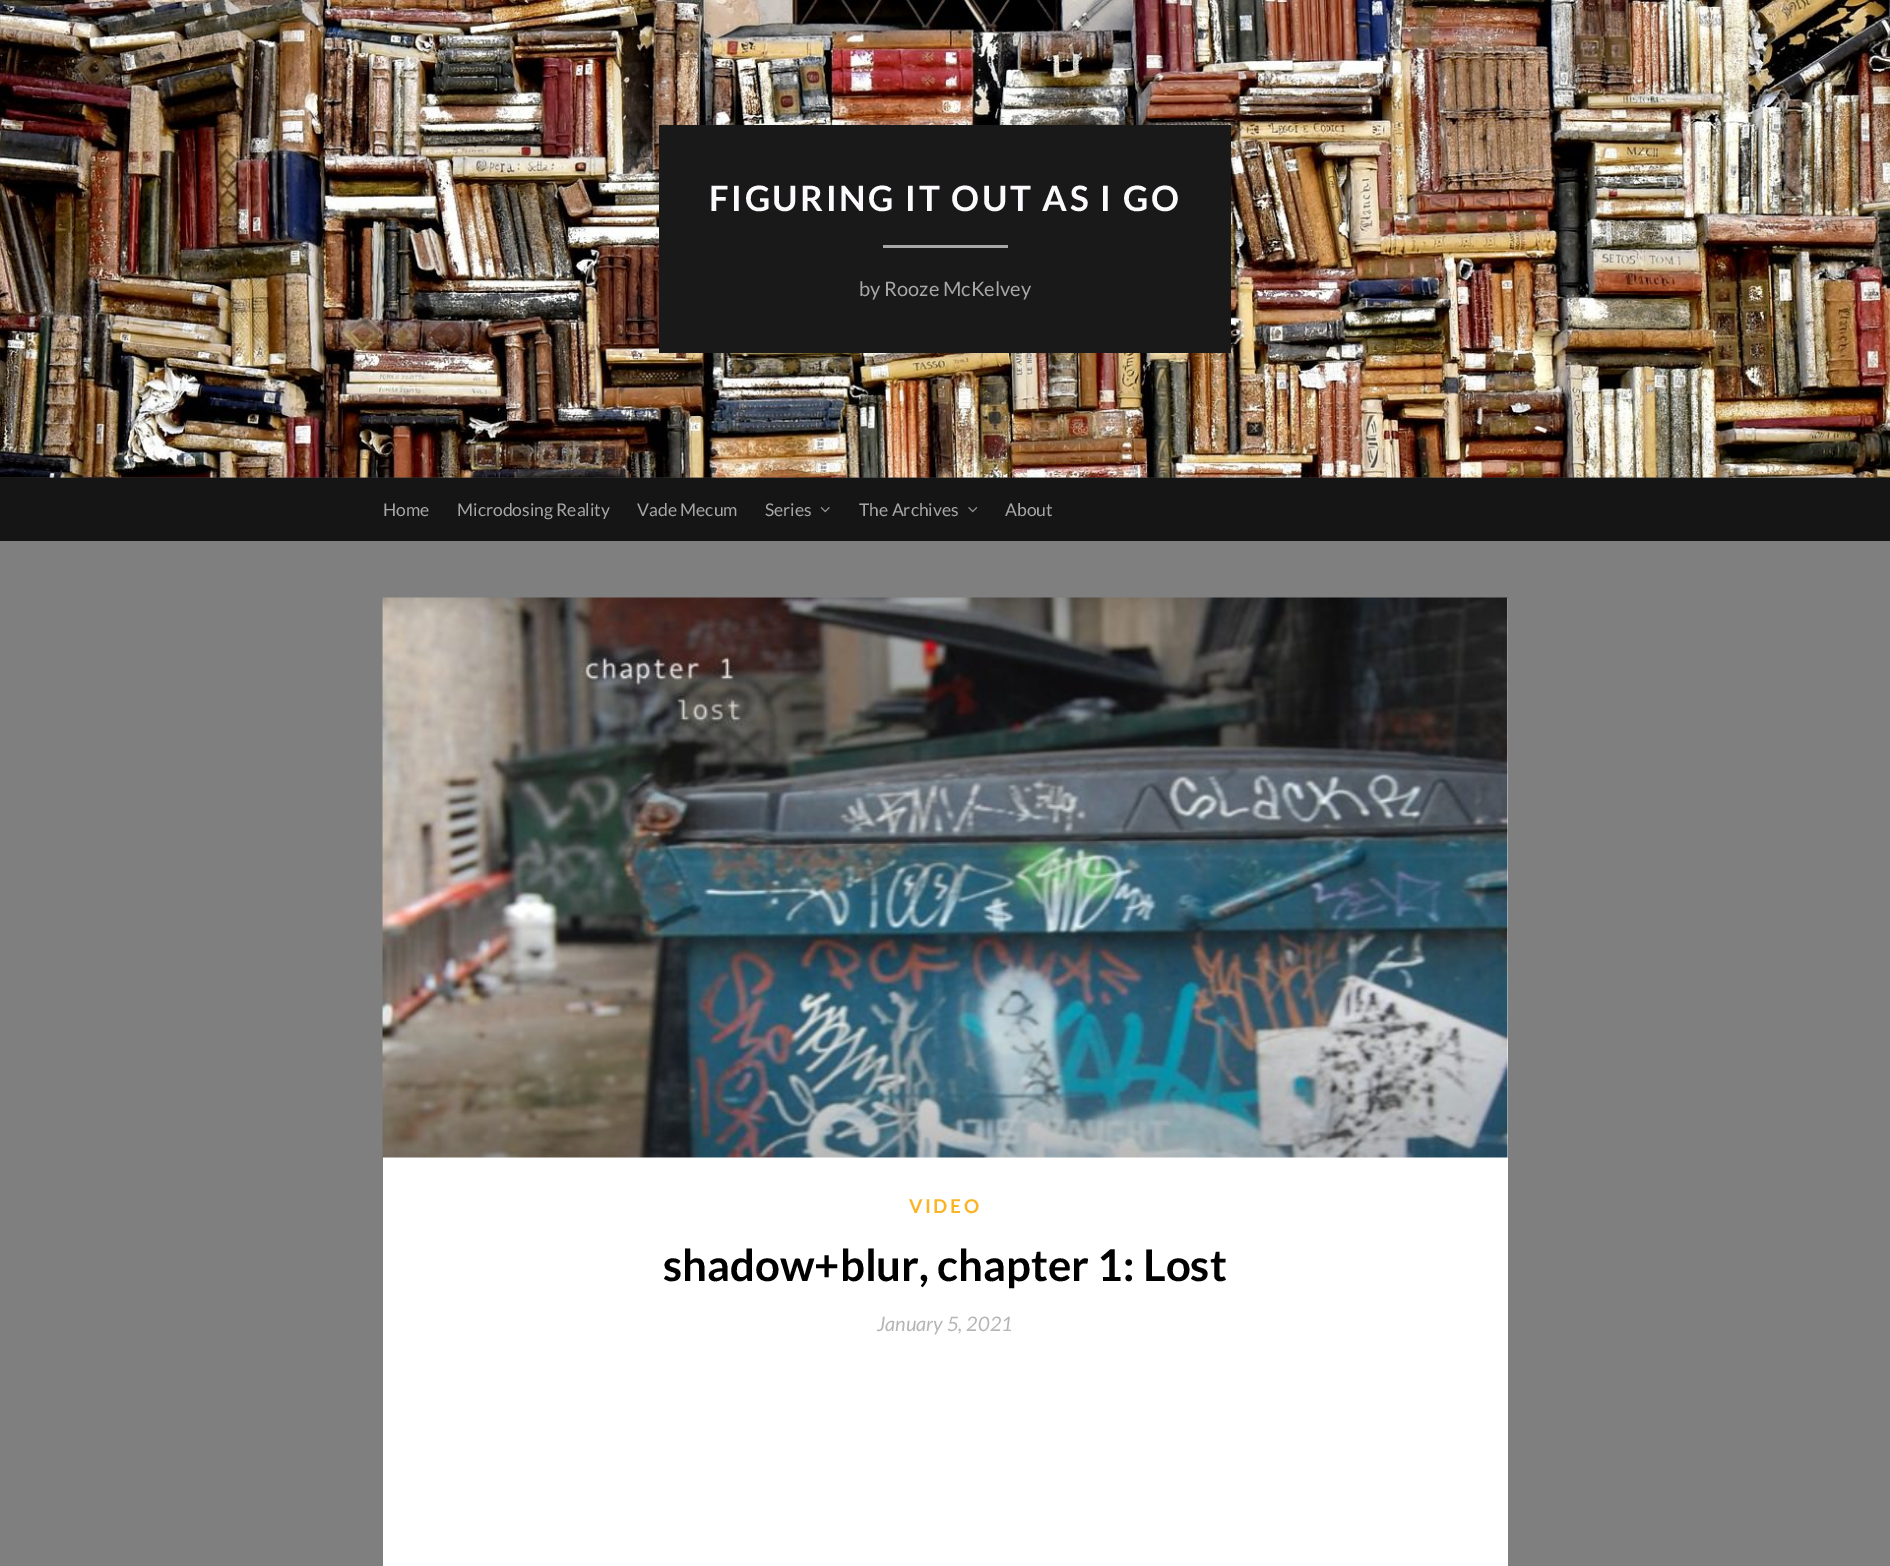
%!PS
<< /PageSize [1890 1566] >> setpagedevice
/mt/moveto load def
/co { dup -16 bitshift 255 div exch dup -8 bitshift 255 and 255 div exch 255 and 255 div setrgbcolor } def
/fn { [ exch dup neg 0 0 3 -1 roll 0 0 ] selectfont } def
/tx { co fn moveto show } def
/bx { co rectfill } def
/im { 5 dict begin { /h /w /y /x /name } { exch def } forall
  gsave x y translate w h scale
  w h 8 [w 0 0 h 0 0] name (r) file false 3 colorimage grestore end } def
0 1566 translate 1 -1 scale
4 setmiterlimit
0 0 1890 1566 16#7F7F7F bx
0 477 1890 1 16#333333 bx
(media/1.raw) 0 0 1890 478 im
659 125 572 228 16#191919 bx
883 245 125 3 16#A7A7A7 bx
0 478 1890 63 16#151515 bx
(media/2.raw) 820 507 10 6 im
(media/3.raw) 968 507 10 6 im
383 598 1125 968 16#FFFFFF bx
(media/4.raw) 382 597 1126 561 im
/Lato-Bold 35 fn
16#FCFAFD co
709 211 mt 2.5 0 (FIGURING IT OUT AS I GO) ashow
(by Rooze McKelvey) 859 296 /Lato-Regular 20 16#A7A7A7 tx
(Home) 383 516 /Lato-Regular 17.5 16#A7A7A7 tx
(Microdosing Reality) 457 516 /Lato-Regular 17.5 16#A7A7A7 tx
(Vade Mecum) 637 516 /Lato-Regular 17.5 16#A7A7A7 tx
(Series) 765 516 /Lato-Regular 17.5 16#A7A7A7 tx
(The Archives) 859 516 /Lato-Regular 17.5 16#A7A7A7 tx
(About) 1005 516 /Lato-Regular 17.5 16#A7A7A7 tx
/Lato-Bold 19 fn
16#FAB526 co
909 1213 mt 2.5 0 (VIDEO) ashow
(shadow+blur, chapter 1: Lost) 663 1281 /Lato-Bold 43.75 16#000000 tx
(January 5, 2021) 877 1331 /Lato-Italic 20 16#B5B5B5 tx
showpage
